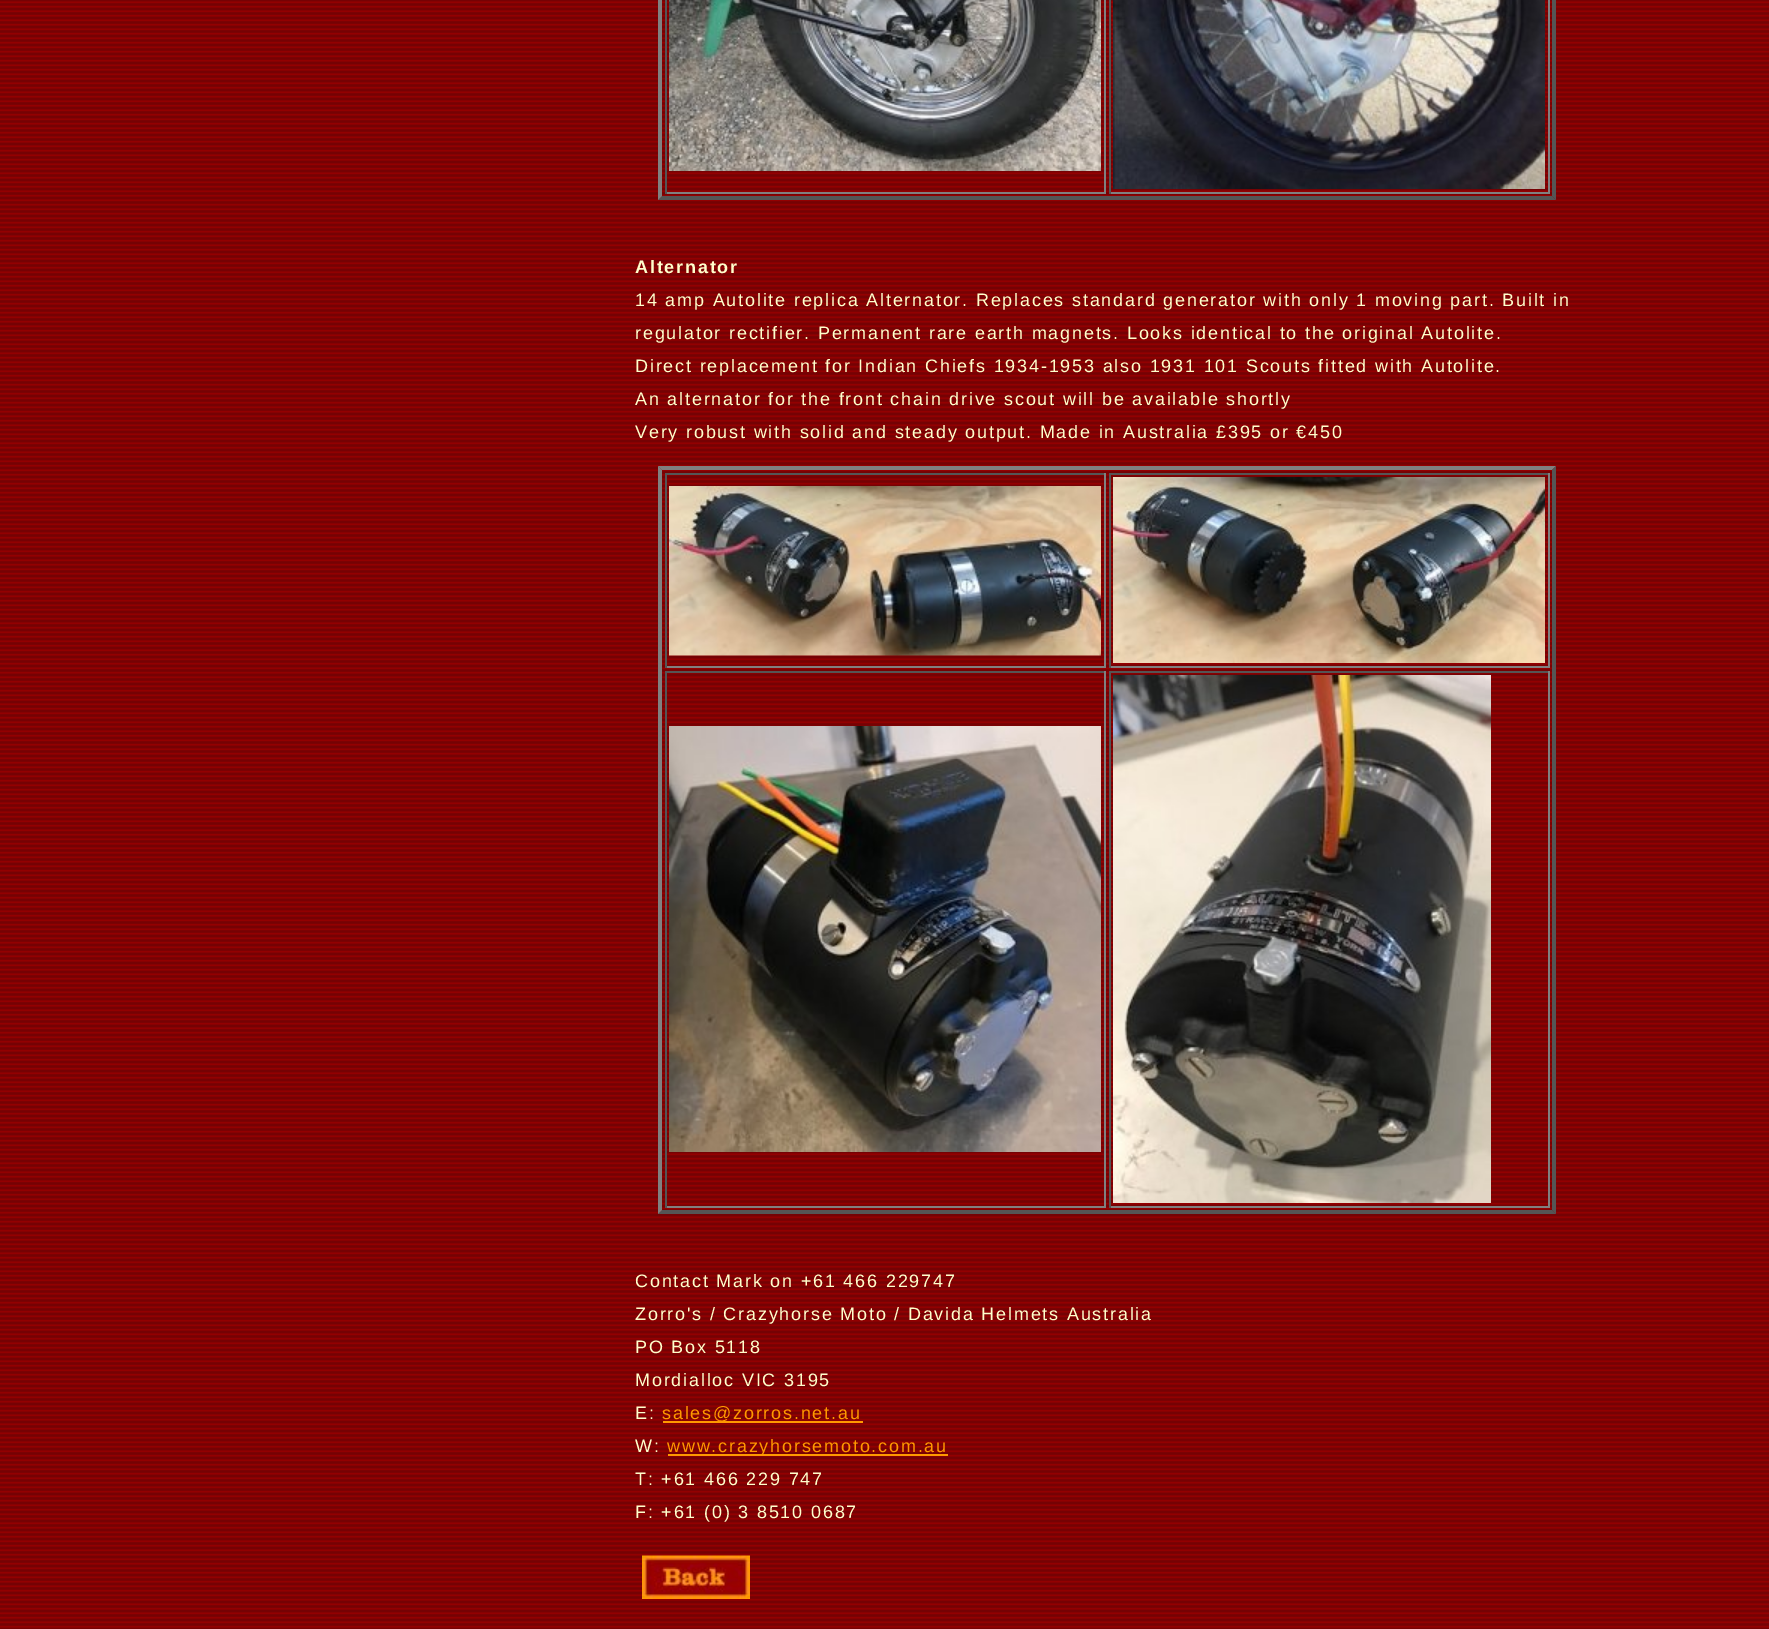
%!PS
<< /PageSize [1769 1629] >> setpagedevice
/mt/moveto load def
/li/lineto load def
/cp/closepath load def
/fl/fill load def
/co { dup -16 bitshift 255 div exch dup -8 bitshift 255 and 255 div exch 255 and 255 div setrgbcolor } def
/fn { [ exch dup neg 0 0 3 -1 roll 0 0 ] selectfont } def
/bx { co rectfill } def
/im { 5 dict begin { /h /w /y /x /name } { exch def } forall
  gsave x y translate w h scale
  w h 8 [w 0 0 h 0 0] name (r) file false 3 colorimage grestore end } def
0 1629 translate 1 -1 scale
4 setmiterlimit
0 0 1769 1629 16#FFFFFF bx
(media/1.raw) 0 0 1769 1629 im
16#555555 co
1556 -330 mt 1556 200 li 1552 196 li 1552 -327 li cp fl
1556 200 mt 658 200 li 662 196 li 1552 196 li cp fl
16#808080 co
658 200 mt 658 -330 li 662 -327 li 662 196 li cp fl
1104 0 2 194 16#808080 bx
665 192 441 2 16#808080 bx
665 0 2 194 16#555555 bx
(media/2.raw) 669 0 432 171 im
1548 0 2 194 16#808080 bx
1109 192 441 2 16#808080 bx
1109 0 2 194 16#555555 bx
(media/3.raw) 1113 0 432 189 im
16#808080 co
658 466 mt 1556 466 li 1552 470 li 662 470 li cp fl
16#555555 co
1556 466 mt 1556 1214 li 1552 1210 li 1552 470 li cp fl
1556 1214 mt 658 1214 li 662 1210 li 1552 1210 li cp fl
16#808080 co
658 1214 mt 658 466 li 662 470 li 662 1210 li cp fl
665 473 441 2 16#555555 bx
1104 473 2 195 16#808080 bx
665 666 441 2 16#808080 bx
665 473 2 195 16#555555 bx
(media/4.raw) 669 486 432 170 im
1109 473 441 2 16#555555 bx
1548 473 2 195 16#808080 bx
1109 666 441 2 16#808080 bx
1109 473 2 195 16#555555 bx
(media/5.raw) 1113 477 432 186 im
665 671 441 2 16#555555 bx
1104 671 2 537 16#808080 bx
665 1206 441 2 16#808080 bx
665 671 2 537 16#555555 bx
(media/6.raw) 669 726 432 426 im
1109 671 441 2 16#555555 bx
1548 671 2 537 16#808080 bx
1109 1206 441 2 16#808080 bx
1109 671 2 537 16#555555 bx
(media/7.raw) 1113 675 378 528 im
663 1421 200 2 16#FF9900 bx
668 1454 280 2 16#FF9900 bx
(media/8.raw) 642 1555 108 44 im
/LiberationSans-Bold 18 fn
16#FFFFCC co
635 273 mt 1.8 0 (Alternator) ashow
/LiberationSans-Regular 18 fn
635 306 mt 1.8 0 (14 amp Autolite replica Alternator. Replaces standard generator with only 1 moving part. Built in) ashow
635 339 mt 1.8 0 (regulator rectifier. Permanent rare earth magnets. Looks identical to the original Autolite.) ashow
635 372 mt 1.8 0 (Direct replacement for Indian Chiefs 1934-1953 also 1931 101 Scouts fitted with Autolite.) ashow
635 405 mt 1.8 0 (An alternator for the front chain drive scout will be available shortly) ashow
635 438 mt 1.8 0 (Very robust with solid and steady output. Made in Australia £395 or €450) ashow
635 1287 mt 1.8 0 (Contact Mark on +61 466 229747) ashow
635 1320 mt 1.8 0 (Zorro's / Crazyhorse Moto / Davida Helmets Australia) ashow
635 1353 mt 1.8 0 (PO Box 5118) ashow
635 1386 mt 1.8 0 (Mordialloc VIC 3195) ashow
635 1419 mt 1.8 0 (E:) ashow
16#FF9900 co
662 1419 mt 1.8 0 (sales@zorros.net.au) ashow
16#FFFFCC co
635 1452 mt 1.8 0 (W:) ashow
16#FF9900 co
667 1452 mt 1.8 0 (www.crazyhorsemoto.com.au) ashow
16#FFFFCC co
635 1485 mt 1.8 0 (T: +61 466 229 747) ashow
635 1518 mt 1.8 0 (F: +61 \(0\) 3 8510 0687) ashow
showpage
